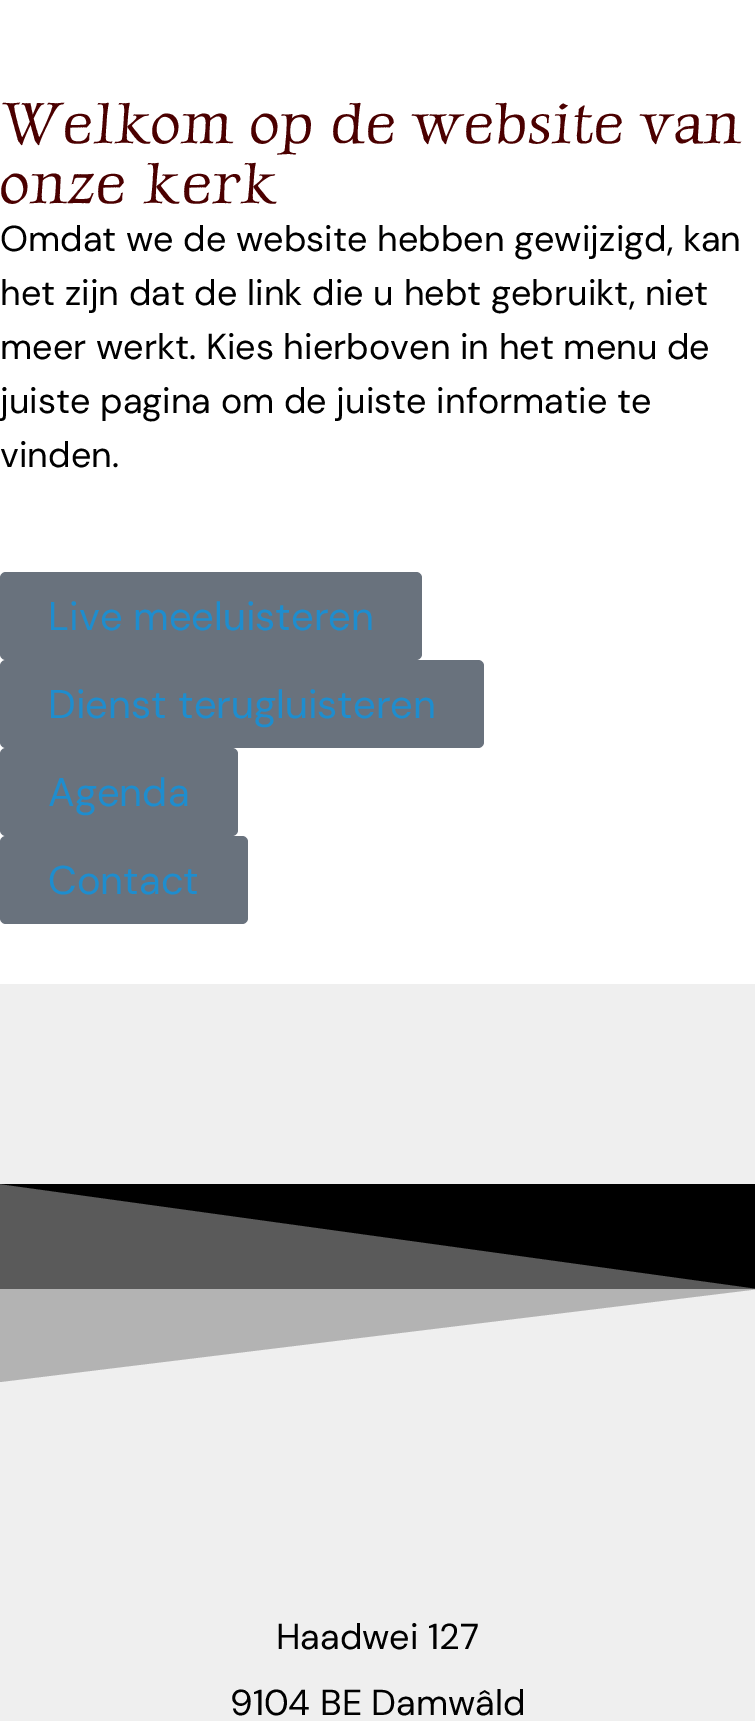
%!PS
<< /PageSize [755 1721] /PageUsesTransparency true >> setpagedevice
/mt/moveto load def
/li/lineto load def
/cp/closepath load def
/fl/fill load def
/co { dup -16 bitshift 255 div exch dup -8 bitshift 255 and 255 div exch 255 and 255 div setrgbcolor } def
/fn { [ exch dup neg 0 0 3 -1 roll 0 0 ] selectfont } def
/tx { co fn moveto show } def
/bx { co rectfill } def
/al { dup .setfillconstantalpha .setstrokeconstantalpha } def
/rr { 5 dict begin { /r /h /w /y /x } { exch def } forall
  x r add y moveto x w add y 2 copy h add r arct x w add y h add x 1 index r arct
  x y h add x y r arct x y 2 copy exch w add exch r arct closepath end } def
0 .pushpdf14devicefilter
0 1721 translate 1 -1 scale
4 setmiterlimit
0 0 755 1721 16#FFFFFF bx
16#69727D co
0 572 422 88 6 rr fl
0 660 484 88 6 rr fl
0 748 238 88 6 rr fl
0 836 248 88 6 rr fl
0 984 755 737 16#EFEFEF bx
0 1184 755 105 16#787878 bx
16#000000 co
0 1184 mt 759 1184 li 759 1289 li cp fl
0.25 al
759 1184 mt 0 1184 li 0 1382 li 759 1289 li cp fl
1 al
(Welkom op de website van) 0 143 /LuxuriousRoman-Regular 60 16#4B0000 tx
(onze kerk) 0 203 /LuxuriousRoman-Regular 60 16#4B0000 tx
(Omdat we de website hebben gewijzigd, kan) 0 251 /DMSans-Regular 36 16#000000 tx
(het zijn dat de link die u hebt gebruikt, niet) 0 305 /DMSans-Regular 36 16#000000 tx
(meer werkt. Kies hierboven in het menu de) 0 359 /DMSans-Regular 36 16#000000 tx
(juiste pagina om de juiste informatie te) 0 413 /DMSans-Regular 36 16#000000 tx
(vinden.) 0 467 /DMSans-Regular 36 16#000000 tx
(Live meeluisteren) 48 630 /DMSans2-Regular 40 16#1E8DCE tx
48 718 mt 1 0 32 (Dienst terugluisteren) widthshow
(Agenda) 48 806 /DMSans2-Regular 40 16#1E8DCE tx
(Contact) 48 894 /DMSans2-Regular 40 16#1E8DCE tx
(Haadwei 127) 276 1649 /DMSans-Regular 36 16#000000 tx
(9104 BE Damwâld) 230 1715 /DMSans-Regular 36 16#000000 tx
.poppdf14devicefilter showpage
